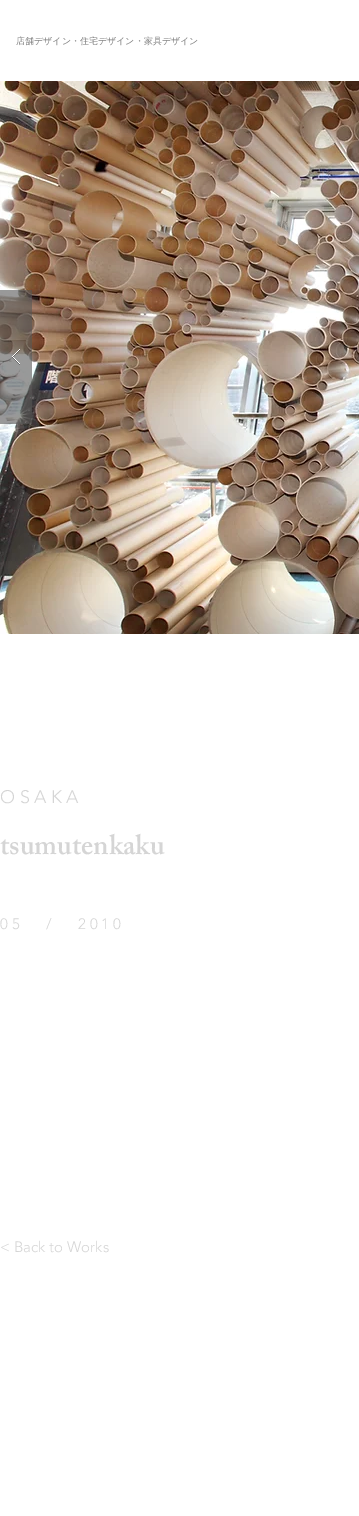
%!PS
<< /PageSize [359 1516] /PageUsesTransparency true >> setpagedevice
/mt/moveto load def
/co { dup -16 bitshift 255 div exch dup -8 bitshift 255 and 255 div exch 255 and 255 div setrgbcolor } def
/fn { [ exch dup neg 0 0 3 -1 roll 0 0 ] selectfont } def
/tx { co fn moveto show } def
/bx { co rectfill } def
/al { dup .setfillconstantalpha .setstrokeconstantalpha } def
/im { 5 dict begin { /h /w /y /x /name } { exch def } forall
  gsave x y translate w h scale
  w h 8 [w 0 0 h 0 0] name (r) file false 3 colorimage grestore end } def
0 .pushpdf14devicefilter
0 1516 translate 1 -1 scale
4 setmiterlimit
0 0 359 1516 16#FFFFFF bx
(media/1.raw) 0 81 359 553 im
0.6 al
0 290 32 134 16#555555 bx
1 al
(media/2.raw) 12 349 8 16 im
(店舗デザイン・住宅デザイン・家具デザイン) 16 44 /WenQuanYiZenHei-Medium 9 16#808080 tx
/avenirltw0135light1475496-Light 18 fn
16#D5D5D5 co
0 803 mt 4.5 0 (OSAKA) ashow
(tsumutenkaku) 0 854 /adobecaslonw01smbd-SemiBold 28 16#D5D5D5 tx
/avenirltw0135light1475496-Light 15 fn
0 929 mt 3.75 0 (05   /   2010) ashow
(< Back to Works) 0 1252 /avenirltw0135light1475496-Light 15 16#D5D5D5 tx
.poppdf14devicefilter showpage
